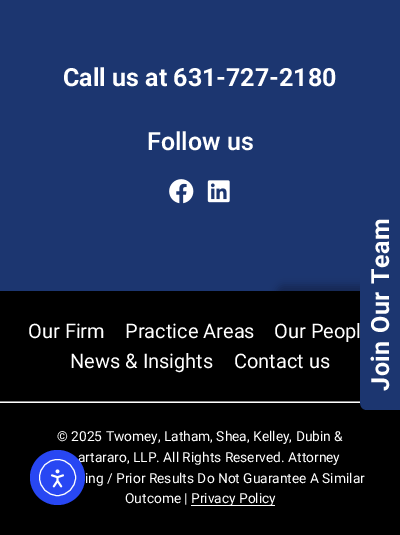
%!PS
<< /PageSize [400 535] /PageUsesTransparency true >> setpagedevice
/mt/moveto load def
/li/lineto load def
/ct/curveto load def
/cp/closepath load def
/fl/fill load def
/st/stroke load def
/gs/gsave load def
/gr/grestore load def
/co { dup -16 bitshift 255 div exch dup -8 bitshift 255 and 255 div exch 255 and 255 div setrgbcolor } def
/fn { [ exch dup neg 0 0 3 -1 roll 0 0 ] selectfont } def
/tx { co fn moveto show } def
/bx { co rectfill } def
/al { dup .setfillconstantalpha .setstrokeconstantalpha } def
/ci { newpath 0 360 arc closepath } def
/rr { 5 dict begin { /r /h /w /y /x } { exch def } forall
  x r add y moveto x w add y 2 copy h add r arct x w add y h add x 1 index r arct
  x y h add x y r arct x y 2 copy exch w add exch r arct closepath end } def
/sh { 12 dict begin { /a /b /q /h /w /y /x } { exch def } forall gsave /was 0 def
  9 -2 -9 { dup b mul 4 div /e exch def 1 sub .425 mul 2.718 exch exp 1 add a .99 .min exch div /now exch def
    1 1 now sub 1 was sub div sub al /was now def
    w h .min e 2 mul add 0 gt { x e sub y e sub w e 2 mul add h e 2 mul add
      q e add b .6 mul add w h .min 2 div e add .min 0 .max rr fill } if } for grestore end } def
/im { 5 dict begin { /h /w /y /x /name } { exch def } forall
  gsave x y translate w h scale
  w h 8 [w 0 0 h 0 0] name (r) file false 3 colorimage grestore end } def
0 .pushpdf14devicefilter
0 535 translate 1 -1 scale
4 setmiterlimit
0 0 400 535 16#FFFFFF bx
0 0 400 291 16#1C3670 bx
(media/1.raw) 169 179 25 25 im
(media/2.raw) 207 180 23 23 im
0 291 360 110 16#000000 bx
0 403 400 132 16#000000 bx
0 401 360 1 16#8B8B8B bx
191 505 84 1 16#FFFFFF bx
16#000000 co
276 285 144 40 8 4 .25 sh
(Call us at 631-727-2180) 63 86 /Roboto-Bold 25 16#FFFFFF tx
(Follow us) 147 150 /Roboto-SemiBold 25 16#FFFFFF tx
(Our Firm) 28 338 /Roboto-Regular 20 16#FFFFFF tx
(Practice Areas) 125 338 /Roboto-Regular 20 16#FFFFFF tx
(Our Peopl) 274 338 /Roboto-Regular 20 16#FFFFFF tx
(News & Insights) 70 368 /Roboto-Regular 20 16#FFFFFF tx
(Contact us) 234 368 /Roboto-Regular 20 16#FFFFFF tx
(© 2025 Twomey, Latham, Shea, Kelley, Dubin &) 57 441 /Roboto-Regular 13.75 16#FFFFFF tx
(artararo, LLP. All Rights Reserved. Attorney) 78 462 /Roboto-Regular 13.75 16#FFFFFF tx
(ing / Prior Results Do Not Guarantee A Similar) 85 483 /Roboto-Regular 13.75 16#FFFFFF tx
(Outcome |) 125 503 /Roboto-Regular 13.75 16#FFFFFF tx
(Privacy Policy) 191 503 /Roboto-Regular 13.75 16#FFFFFF tx
16#1C3670 co
360 402 mt 360 206 li 360 202 363 199 367 199 ct 400 199 li 400 410 li 367 410 li 363 410 360 407 360 402 ct cp fl
/Roboto-Bold 25 fn
16#FFFFFF co
gs 389 391 translate -90 rotate 0 0 mt .6 0 (Join Our Team) ashow gr
16#2847F3 co
57.5 477.5 27.5 ci fl
16#FFFFFF co
57.5 477.5 18 ci st
(media/3.raw) 50 469 14 19 im
.poppdf14devicefilter showpage
